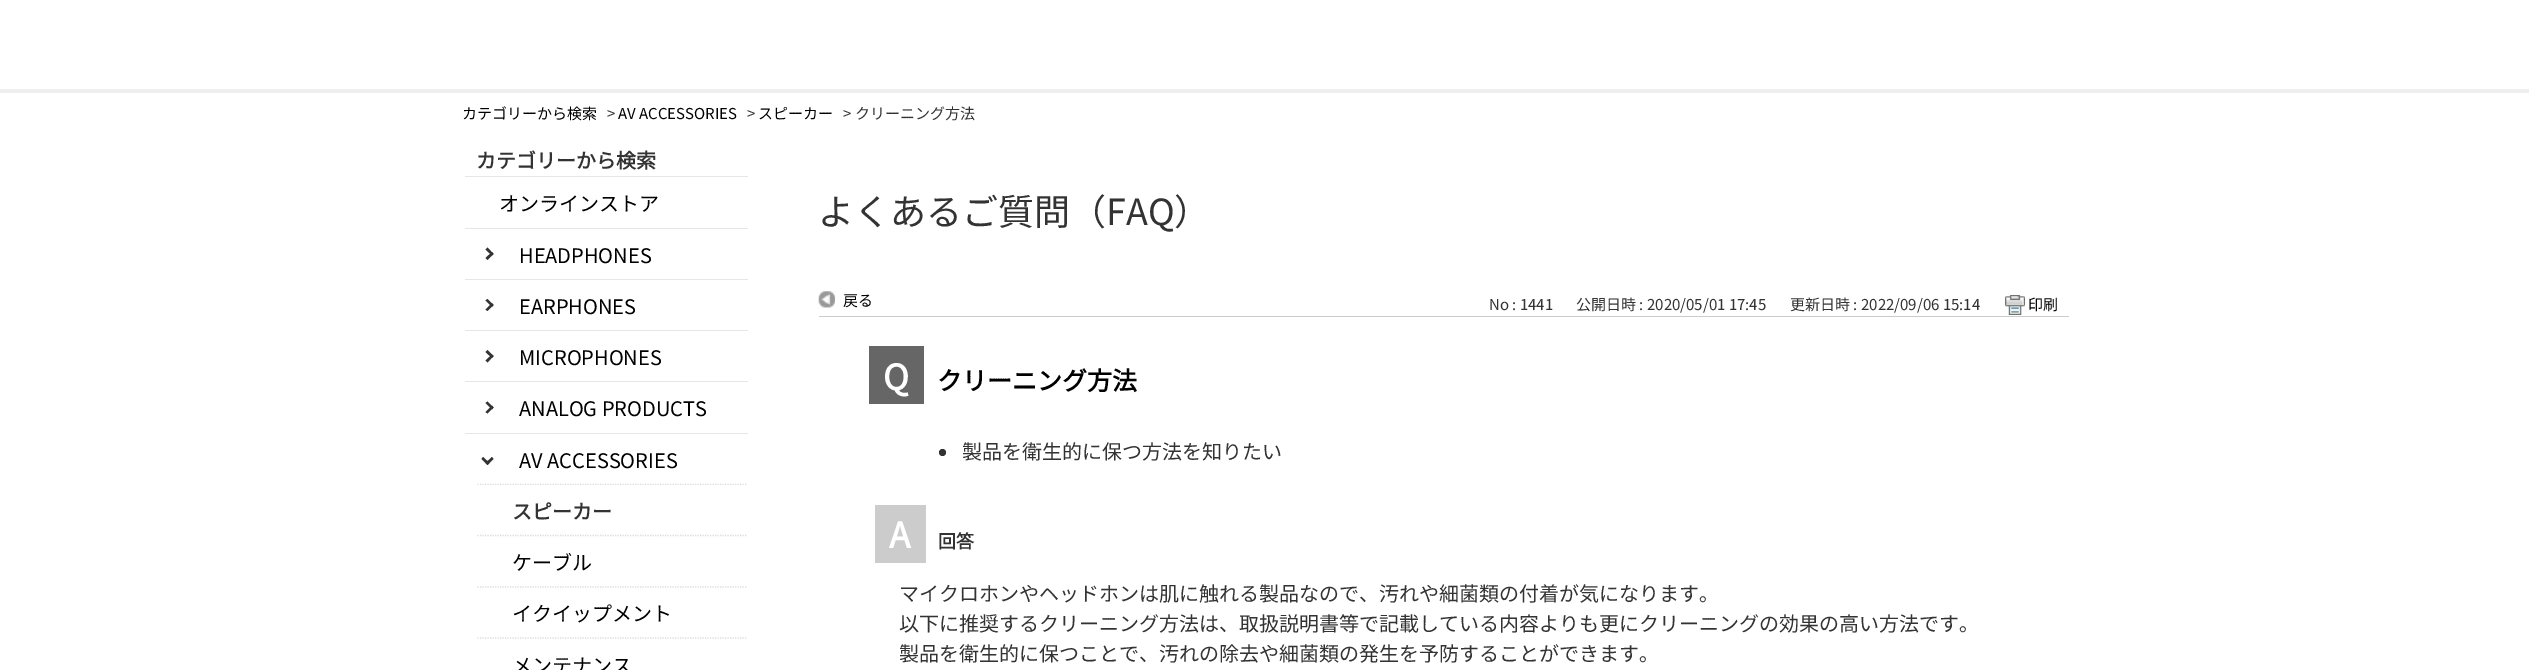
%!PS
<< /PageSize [2529 670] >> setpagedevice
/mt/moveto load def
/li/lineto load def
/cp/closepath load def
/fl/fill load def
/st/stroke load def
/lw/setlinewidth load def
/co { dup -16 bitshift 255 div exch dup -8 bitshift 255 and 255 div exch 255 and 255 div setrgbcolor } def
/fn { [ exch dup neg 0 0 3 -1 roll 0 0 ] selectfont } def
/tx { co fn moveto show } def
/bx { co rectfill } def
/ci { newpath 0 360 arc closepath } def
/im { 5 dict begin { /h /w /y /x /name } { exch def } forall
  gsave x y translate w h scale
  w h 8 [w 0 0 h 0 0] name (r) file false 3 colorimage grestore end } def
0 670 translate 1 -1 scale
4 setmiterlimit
0 0 2529 670 16#FFFFFF bx
0 89 2529 4 16#EEEEEE bx
465 176 283 1 16#E6E6E6 bx
465 228 283 1 16#E6E6E6 bx
16#333333 co
487.5 247.5 mt 493.5 254 li 492 255.5 li 485.5 249.5 li cp fl
465 279 283 1 16#E6E6E6 bx
16#333333 co
492 252 mt 493.5 254 li 487.5 260 li 485.5 258 li cp 487.5 299 mt 493.5 305 li 492 307 li 485.5 300.5 li cp fl
465 330 283 1 16#E6E6E6 bx
16#333333 co
492 303 mt 493.5 305 li 487.5 311 li 485.5 309.5 li cp 487.5 350 mt 493.5 356 li 492 358 li 485.5 352 li cp fl
465 381 283 1 16#E6E6E6 bx
16#333333 co
492 354.5 mt 493.5 356 li 487.5 362.5 li 485.5 360.5 li cp 487.5 401.5 mt 493.5 407.5 li 492 409.5 li 485.5 403 li cp fl
465 433 283 1 16#E6E6E6 bx
16#333333 co
492 405.5 mt 493.5 407.5 li 487.5 413.5 li 485.5 412 li cp 493.5 459 mt 487.5 465 li 485.5 463 li 492 457 li cp fl
489.5 463 mt 487.5 465 li 481.5 459 li 483 457 li cp fl
16#DCDCDC co
1.2 lw
[1.25 1.25] 0 setdash
477.5 484.5 mt 747.5 484.5 li st
478 485 268 1 16#FFFFFF bx
16#DCDCDC co
477.5 535.5 mt 747.5 535.5 li st
477.5 587 mt 747.5 587 li st
477.5 638 mt 747.5 638 li st
819 316 1250 1 16#CCCCCC bx
(media/1.raw) 818 291 17 17 im
(media/2.raw) 2005 295 20 20 im
869 346 55 58 16#666666 bx
16#333333 co
942.5 452.5 3.5 ci fl
875 505 51 58 16#CCCCCC bx
(カテゴリーから検索) 462 119 /NotoSansJP-Thin 15 16#000000 tx
(>) 607 119 /NotoSansJP-Thin 15 16#333333 tx
(AV ACCESSORIES) 618 119 /NotoSansJP-Thin 15 16#000000 tx
(>) 747 119 /NotoSansJP-Thin 15 16#333333 tx
(スピーカー) 758 119 /NotoSansJP-Thin 15 16#000000 tx
(> クリーニング方法) 843 119 /NotoSansJP-Thin 15 16#333333 tx
(カテゴリーから検索) 476 168 /NotoSansJP-Bold 20 16#333333 tx
(オンラインストア) 499 211 /NotoSansJP-Thin 20 16#000000 tx
(HEADPHONES) 519 263 /NotoSansJP-Thin 20 16#000000 tx
(EARPHONES) 519 314 /NotoSansJP-Thin 20 16#000000 tx
(MICROPHONES) 519 365 /NotoSansJP-Thin 20 16#000000 tx
(ANALOG PRODUCTS) 519 416 /NotoSansJP-Thin 20 16#000000 tx
(AV ACCESSORIES) 519 468 /NotoSansJP-Thin 20 16#000000 tx
(スピーカー) 512 519 /NotoSansJP-Bold 20 16#333333 tx
(ケーブル) 512 570 /NotoSansJP-Thin 20 16#000000 tx
(イクイップメント) 512 621 /NotoSansJP-Thin 20 16#000000 tx
(メンテナンス) 512 673 /NotoSansJP-Thin 20 16#000000 tx
(よくあるご質問（FAQ）) 818 225 /NotoSansJP-Thin 36 16#333333 tx
(戻る) 843 306 /NotoSansJP-Thin 15 16#000000 tx
(No : 1441) 1489 310 /NotoSansJP-Thin 15 16#333333 tx
(公開日時 : 2020/05/01 17:45) 1576 310 /NotoSansJP-Thin 15 16#333333 tx
(更新日時 : 2022/09/06 15:14) 1790 310 /NotoSansJP-Thin 15 16#333333 tx
(印刷) 2028 310 /NotoSansJP-Thin 15 16#000000 tx
(Q) 883 390 /NotoSansJP-Bold 35 16#FFFFFF tx
(クリーニング方法) 937 390 /NotoSansJP-Bold 25 16#000000 tx
(製品を衛生的に保つ方法を知りたい) 962 459 /NotoSansJP-Thin 20 16#333333 tx
(A) 889 548 /NotoSansJP-Bold 35 16#FFFFFF tx
(回答) 938 548 /NotoSansJP-Bold 18 16#333333 tx
(マイクロホンやヘッドホンは肌に触れる製品なので、汚れや細菌類の付着が気になります。) 899 601 /NotoSansJP-Thin 20 16#333333 tx
(以下に推奨するクリーニング方法は、取扱説明書等で記載している内容よりも更にクリーニングの効果の高い方法です。) 899 631 /NotoSansJP-Thin 20 16#333333 tx
(製品を衛生的に保つことで、汚れの除去や細菌類の発生を予防することができます。) 899 661 /NotoSansJP-Thin 20 16#333333 tx
showpage
